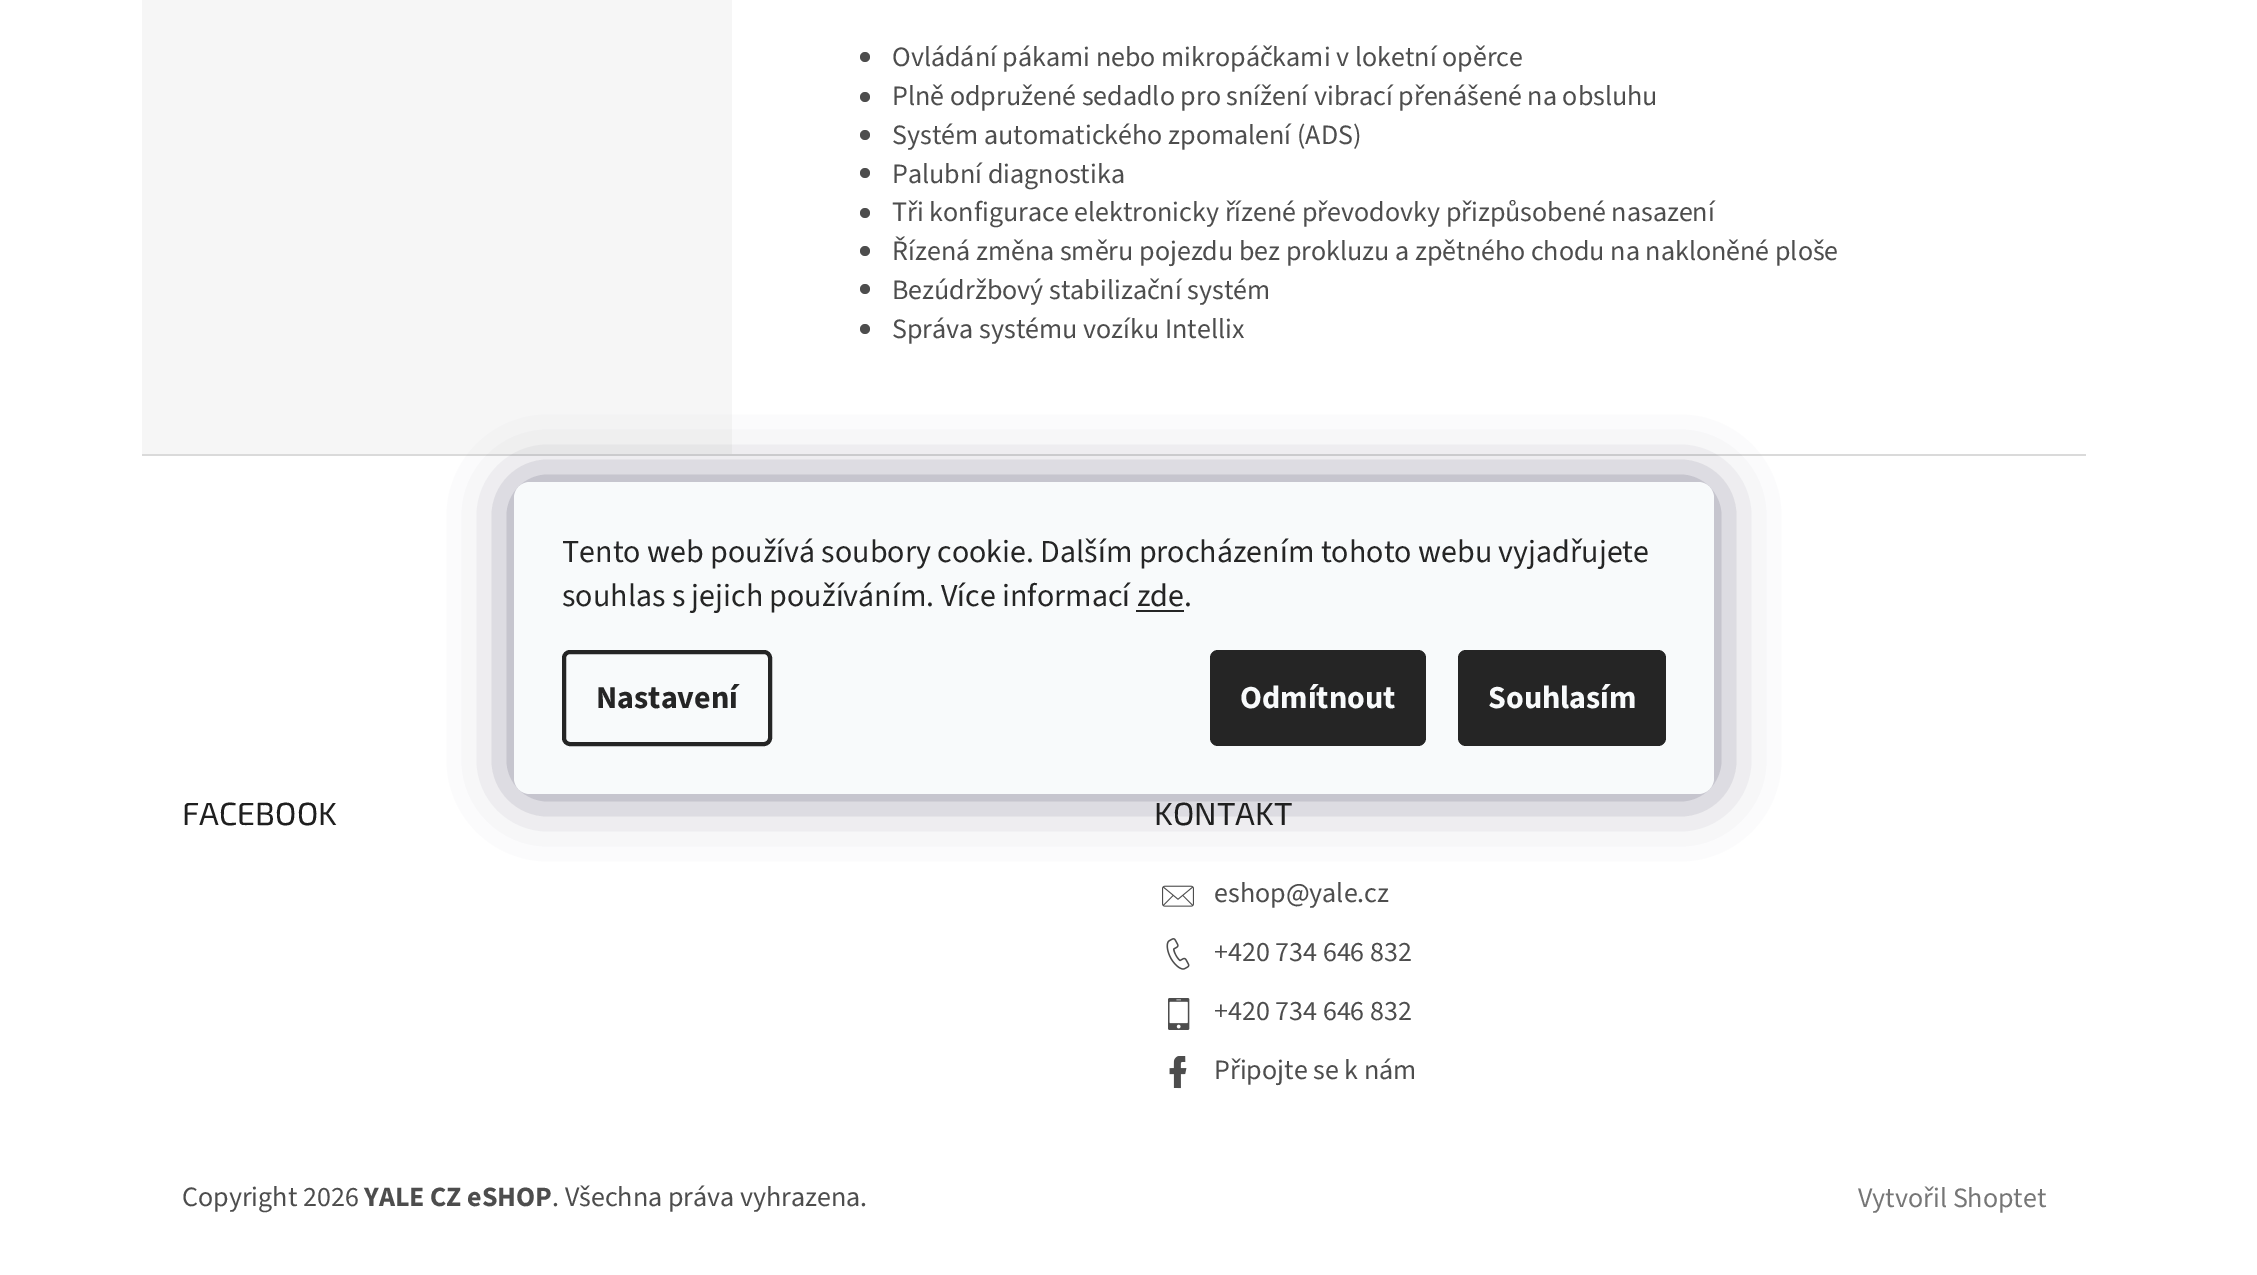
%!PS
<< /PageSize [2257 1275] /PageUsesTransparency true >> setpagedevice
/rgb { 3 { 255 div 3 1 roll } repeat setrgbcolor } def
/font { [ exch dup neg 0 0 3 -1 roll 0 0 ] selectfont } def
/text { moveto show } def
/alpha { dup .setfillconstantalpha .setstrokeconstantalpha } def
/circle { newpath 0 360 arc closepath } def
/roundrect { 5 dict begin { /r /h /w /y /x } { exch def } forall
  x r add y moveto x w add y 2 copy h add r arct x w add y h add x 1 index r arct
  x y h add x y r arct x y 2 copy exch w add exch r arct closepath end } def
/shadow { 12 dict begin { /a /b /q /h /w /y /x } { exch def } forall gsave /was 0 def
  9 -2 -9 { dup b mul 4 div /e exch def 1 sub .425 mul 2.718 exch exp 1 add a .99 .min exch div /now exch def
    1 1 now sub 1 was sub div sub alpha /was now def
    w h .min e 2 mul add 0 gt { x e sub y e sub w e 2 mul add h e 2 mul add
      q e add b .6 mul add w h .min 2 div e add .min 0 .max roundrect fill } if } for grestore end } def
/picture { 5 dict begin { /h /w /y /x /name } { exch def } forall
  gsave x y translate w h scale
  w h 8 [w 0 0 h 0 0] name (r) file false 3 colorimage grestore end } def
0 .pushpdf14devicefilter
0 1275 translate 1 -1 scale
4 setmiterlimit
255 255 255 rgb
0 0 2257 1275 rectfill
246 246 246 rgb
142 0 590 454 rectfill
77 77 77 rgb
865 57 5 circle fill
865 97 5 circle fill
865 135 5 circle fill
865 173 5 circle fill
865 213 5 circle fill
865 251 5 circle fill
865 289 5 circle fill
865 329 5 circle fill
218 218 218 rgb
142 454 1944 2 rectfill
(img_01.rgb) 1162 885 32 22 picture
(img_02.rgb) 1166 938 24 32 picture
(img_03.rgb) 1168 998 22 32 picture
(img_04.rgb) 1169 1056 18 33 picture
27 25 57 rgb
514 482 1200 312 16 30 0.5 shadow
248 250 251 rgb
514 482 1200 312 16 roundrect fill
37 37 37 rgb
1136 610 48 2 rectfill
4 setlinewidth
564 652 206 92 6 roundrect stroke
1210 650 216 96 8 roundrect fill
1458 650 208 96 8 roundrect fill
/SourceSans3-Regular 28 font
77 77 77 rgb
(Ovládání pákami nebo mikropáčkami v loketní opěrce) 892 66 text
(Plně odpružené sedadlo pro snížení vibrací přenášené na obsluhu) 892 105 text
(Systém automatického zpomalení \(ADS\)) 892 144 text
(Palubní diagnostika) 892 183 text
(Tři konfigurace elektronicky řízené převodovky přizpůsobené nasazení) 892 221 text
(Řízená změna směru pojezdu bez prokluzu a zpětného chodu na nakloněné ploše) 892 260 text
(Bezúdržbový stabilizační systém) 892 299 text
(Správa systému vozíku Intellix) 892 338 text
/Exo2-Regular 32 font
31 31 31 rgb
(FACEBOOK) 182 825 text
(KONTAKT) 1154 825 text
/SourceSans3-Regular 28 font
77 77 77 rgb
(eshop@yale.cz) 1214 902 text
(+420 734 646 832) 1214 961 text
(+420 734 646 832) 1214 1020 text
(Připojte se k nám) 1214 1079 text
(Copyright 2026) 182 1206 text
/SourceSans3-Bold 28 font
(YALE CZ eSHOP) 364 1206 text
/SourceSans3-Regular 28 font
(. Všechna práva vyhrazena.) 552 1206 text
118 118 118 rgb
(Vytvořil Shoptet) 1858 1207 text
/SourceSans3-Regular 32 font
37 37 37 rgb
(Tento web používá soubory cookie. Dalším procházením tohoto webu vyjadřujete) 562 562 text
(souhlas s jejich používáním. Více informací zde.) 562 606 text
/SourceSans3-Bold 32 font
(Nastavení) 596 708 text
248 250 251 rgb
(Odmítnout) 1240 708 text
(Souhlasím) 1488 708 text
.poppdf14devicefilter showpage
